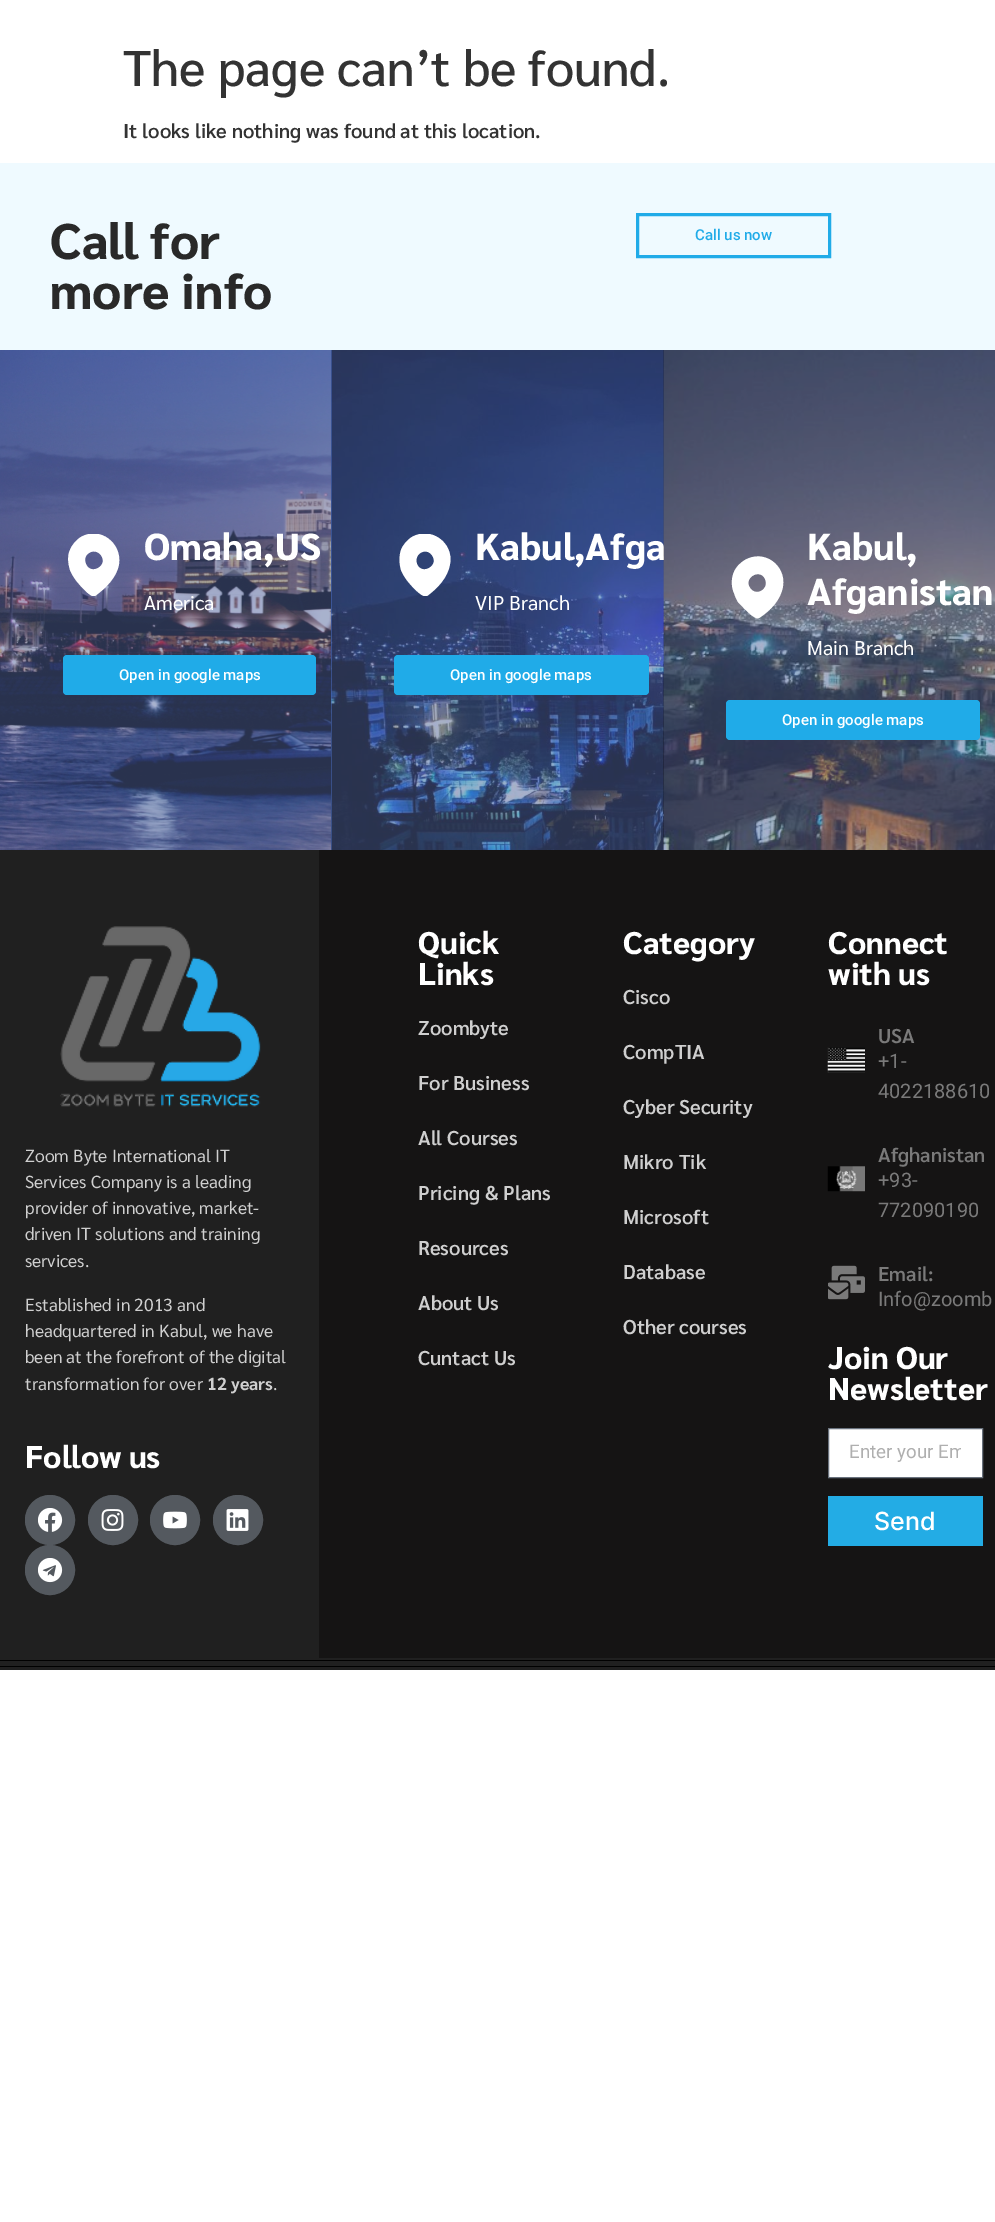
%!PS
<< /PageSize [995 2222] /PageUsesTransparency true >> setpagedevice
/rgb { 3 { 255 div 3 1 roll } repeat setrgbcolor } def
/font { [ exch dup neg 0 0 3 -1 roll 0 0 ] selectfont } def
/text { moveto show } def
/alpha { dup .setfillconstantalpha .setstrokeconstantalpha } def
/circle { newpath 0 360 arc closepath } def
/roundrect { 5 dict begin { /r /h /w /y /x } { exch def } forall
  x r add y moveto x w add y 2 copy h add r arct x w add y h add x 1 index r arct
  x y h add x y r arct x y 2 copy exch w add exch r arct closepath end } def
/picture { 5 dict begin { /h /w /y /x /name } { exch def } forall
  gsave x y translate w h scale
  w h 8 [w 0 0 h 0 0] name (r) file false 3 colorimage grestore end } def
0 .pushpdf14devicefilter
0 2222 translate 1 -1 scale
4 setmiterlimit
255 255 255 rgb
0 0 995 2222 rectfill
239 250 255 rgb
0 163 995 187 rectfill
32 171 232 rgb
3 setlinewidth
637.5 214.5 192 42 rectstroke
(img_01.rgb) 0 350 331 500 picture
gsave
63 534 62 62 rectclip
255 255 255 rgb
81 537 moveto 19 -11 41 6 38 27 rcurveto -2 13 -13 24 -24 32 rcurveto -4 3 -18 -14 -20 -17 rcurveto -2 -3 -4 -6 -5 -9 rcurveto -2 -7 -3 -14 0 -20 rcurveto 2 -5 6 -10 11 -13 rcurveto closepath 86 564 moveto 4 11 21 3 16 -7 rcurveto -5 -11 -21 -4 -16 7 rcurveto closepath eofill
grestore
63 655 253 40 4 roundrect fill
74 130 255 rgb
331 350 1 500 rectfill
(img_02.rgb) 331 350 333 500 picture
0.5 alpha
82 101 155 rgb
331 350 333 500 rectfill
gsave
394 534 62 62 rectclip
1 alpha
255 255 255 rgb
412 537 moveto 19 -11 42 6 38 27 rcurveto -2 13 -12 24 -23 32 rcurveto -5 3 -19 -14 -21 -17 rcurveto -2 -3 -4 -6 -5 -9 rcurveto -2 -7 -2 -14 0 -20 rcurveto 2 -5 6 -10 11 -13 rcurveto closepath 417 564 moveto 4 11 21 3 16 -7 rcurveto -5 -11 -20 -4 -16 7 rcurveto closepath eofill
grestore
1 alpha
32 171 232 rgb
394 655 255 40 4 roundrect fill
21 20 20 rgb
319 850 676 808 rectfill
32 32 32 rgb
0 850 319 808 rectfill
(img_04.rgb) 60 926 201 181 picture
84 89 95 rgb
50 1520 24.5 circle gsave fill grestore
1 setlinewidth
stroke
(img_05.rgb) 38 1508 25 24 picture
113 1520 24.5 circle gsave fill grestore
stroke
(img_06.rgb) 101 1509 23 22 picture
175 1520 24.5 circle gsave fill grestore
stroke
(img_07.rgb) 163 1511 24 18 picture
238 1520 24.5 circle gsave fill grestore
stroke
(img_08.rgb) 226 1509 23 22 picture
50 1570 24.5 circle gsave fill grestore
stroke
(img_09.rgb) 38 1558 25 25 picture
(img_10.rgb) 827 1047 38 26 picture
(img_11.rgb) 827 1166 38 26 picture
(img_12.rgb) 828 1265 37 35 picture
255 255 255 rgb
828.5 1428.5 moveto 154 0 rlineto 0 49 rlineto -154 0 rlineto closepath gsave fill grestore
105 114 125 rgb
stroke
35 172 229 rgb
828 1496 155 50 rectfill
32 32 32 rgb
0 1658 995 12 rectfill
0 0 0 rgb
0 1660 995 1 rectfill
0 1666 995 1 rectfill
/Sarabun-Medium 50 font
51 51 51 rgb
(The page can’t be found.) 123 86 text
/Sarabun-SemiBold 20 font
(It looks like nothing was found at this location.) 123 138 text
/Sarabun-ExtraBold 50 font
41 41 41 rgb
(Call for) 50 259 text
(more info) 50 309 text
/Roboto-Medium 15 font
32 171 232 rgb
(Call us now) 695 240 text
/Sarabun-ExtraBold 37.5 font
255 255 255 rgb
(Omaha,US) 144 560 text
/Sarabun-Regular 20 font
(America) 144 610 text
/Roboto-Medium 15 font
(Open in google maps) 119 680 text
/Sarabun-ExtraBold 37.5 font
(Kabul,Afga) 475 560 text
/Sarabun-Regular 20 font
(VIP Branch) 475 610 text
/Roboto-Medium 15 font
(Open in google maps) 450 680 text
(img_03.rgb) 663 350 332 500 picture
745 560 moveto 19 -11 41 5 38 26 rcurveto -2 14 -13 25 -24 32 rcurveto -4 3 -18 -13 -21 -16 rcurveto -2 -3 -3 -6 -4 -9 rcurveto -3 -7 -3 -14 0 -21 rcurveto 2 -5 6 -9 11 -12 rcurveto closepath 749 586 moveto 5 12 21 4 16 -7 rcurveto -4 -10 -20 -3 -16 7 rcurveto closepath eofill
/Sarabun-ExtraBold 37.5 font
(Kabul,) 807 560 text
(Afganistan) 807 605 text
/Sarabun-Regular 20 font
(Main Branch) 807 655 text
32 171 232 rgb
726 700 254 40 4 roundrect fill
/Roboto-Medium 15 font
255 255 255 rgb
(Open in google maps) 782 725 text
/Sarabun-Regular 17.5 font
207 207 207 rgb
(Zoom Byte International IT) 25 1162 text
(Services Company is a leading) 25 1188 text
(provider of innovative, market-) 25 1214 text
(driven IT solutions and training) 25 1240 text
(services.) 25 1267 text
(Established in 2013 and) 25 1311 text
(headquartered in Kabul, we have) 25 1337 text
(been at the forefront of the digital) 25 1363 text
(transformation for over) 25 1390 text
/Sarabun-Bold 17.5 font
(12 years) 207 1390 text
/Sarabun-Regular 17.5 font
(.) 273 1390 text
/Sarabun-ExtraBold 31.25 font
255 255 255 rgb
(Follow us) 25 1468 text
(Quick) 418 954 text
(Links) 418 985 text
/Sarabun-SemiBold 20 font
207 207 207 rgb
(Zoombyte) 418 1035 text
(For Business) 418 1090 text
(All Courses) 418 1145 text
(Pricing & Plans) 418 1200 text
(Resources) 418 1255 text
(About Us) 418 1310 text
(Cuntact Us) 418 1365 text
/Sarabun-ExtraBold 31.25 font
255 255 255 rgb
(Category) 623 954 text
/Sarabun-SemiBold 20 font
207 207 207 rgb
(Cisco) 623 1004 text
(CompTIA) 623 1059 text
(Cyber Security) 623 1114 text
(Mikro Tik) 623 1169 text
(Microsoft) 623 1224 text
(Database) 623 1279 text
(Other courses) 623 1334 text
/Sarabun-ExtraBold 31.25 font
255 255 255 rgb
(Connect) 828 954 text
(with us) 828 985 text
/Sarabun-SemiBold 20 font
122 122 122 rgb
(USA) 878 1043 text
/Roboto-Regular 20 font
(+1-) 878 1068 text
(4022188610) 878 1098 text
/Sarabun-SemiBold 20 font
(Afghanistan) 878 1162 text
/Roboto-Regular 20 font
(+93-) 878 1187 text
(772090190) 878 1217 text
/Sarabun-SemiBold 20 font
(Email:) 878 1281 text
/Roboto-Regular 20 font
(Info@zoomb) 878 1306 text
/Sarabun-ExtraBold 31.25 font
255 255 255 rgb
(Join Our) 828 1369 text
(Newsletter) 828 1400 text
gsave
849 1440 112 23 rectclip
/Roboto-Regular 18.75 font
175 175 175 rgb
(Enter your Em) 849 1458 text
grestore
/Inter-Medium 25 font
(Send) 874 1530 text
.poppdf14devicefilter showpage
